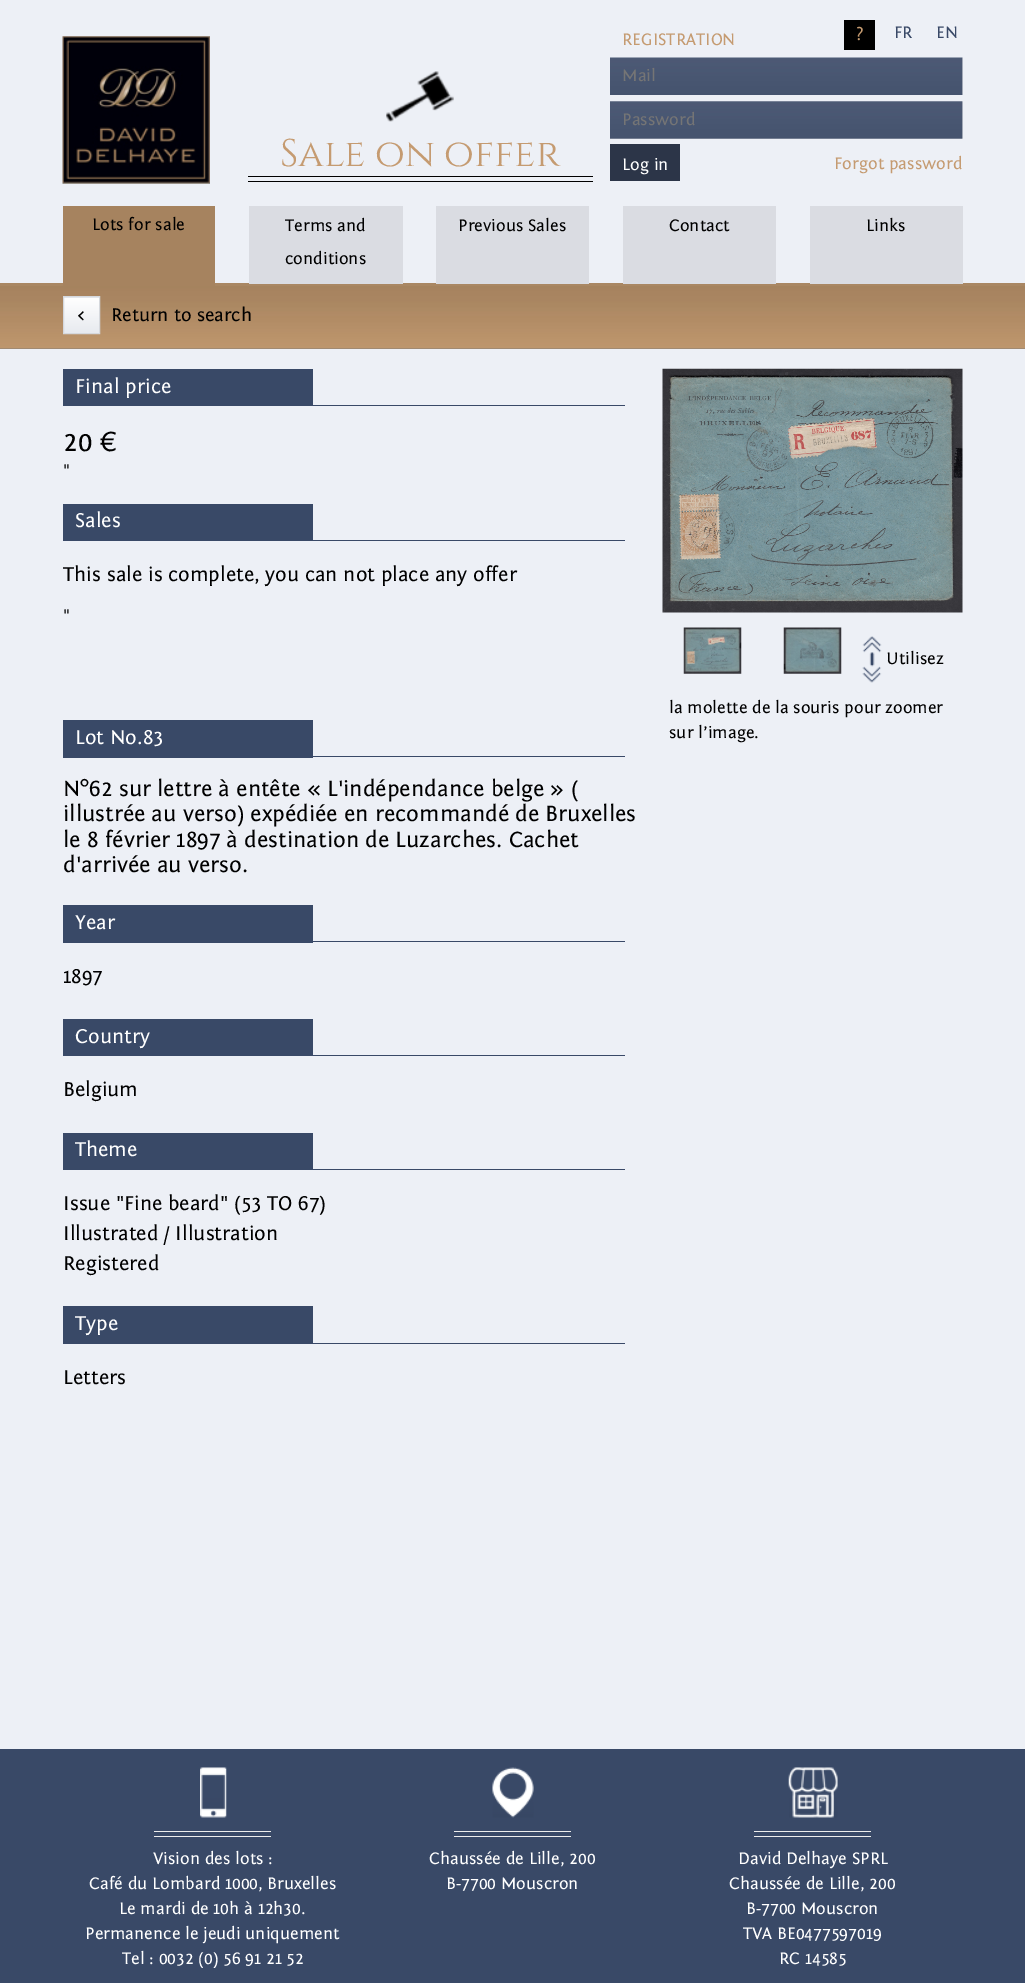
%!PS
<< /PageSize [1025 1983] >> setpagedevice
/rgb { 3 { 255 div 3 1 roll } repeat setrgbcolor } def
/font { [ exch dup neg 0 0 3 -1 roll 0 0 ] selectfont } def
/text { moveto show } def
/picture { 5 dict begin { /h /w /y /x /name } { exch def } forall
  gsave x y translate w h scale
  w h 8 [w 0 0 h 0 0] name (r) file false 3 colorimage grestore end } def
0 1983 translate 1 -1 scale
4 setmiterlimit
237 240 246 rgb
0 0 1025 1983 rectfill
169 135 99 rgb
0 283 1025 3 rectfill
(img_01.rgb) 62 36 148 148 picture
0 0 0 rgb
248 181 345 1 rectfill
(img_02.rgb) 386 71 68 51 picture
248 176 345 1 rectfill
844 20 31 30 rectfill
255 255 255 rgb
962 58 1 37 rectfill
(img_03.rgb) 610 57 353 38 picture
610 101 353 38 rectfill
(img_04.rgb) 610 101 353 38 picture
44 53 72 rgb
610 144 70 37 rectfill
166 131 95 rgb
63 206 152 80 rectfill
218 220 226 rgb
249 206 154 78 rectfill
436 206 153 78 rectfill
623 206 153 78 rectfill
810 206 153 78 rectfill
(img_05.rgb) 0 286 1025 62 picture
161 138 114 rgb
0 348 1025 1 rectfill
gsave 63 297 moveto 37 0 rlineto 0 1 rlineto -37 0 rlineto closepath clip newpath
<< /ShadingType 2 /ColorSpace /DeviceRGB /Coords [81 263 81 298] /Extend [true true] /Function << /FunctionType 2 /Domain [0 1] /C0 [1 1 1] /C1 [0.906 0.918 0.937] /N 1 >> >> shfill grestore
gsave 64 298 moveto 35 0 rlineto 0 35 rlineto -35 0 rlineto closepath clip newpath
<< /ShadingType 2 /ColorSpace /DeviceRGB /Coords [81 298 81 333] /Extend [true true] /Function << /FunctionType 2 /Domain [0 1] /C0 [1 1 1] /C1 [0.906 0.918 0.937] /N 1 >> >> shfill grestore
213 216 221 rgb
63.5 296.5 36 37 rectstroke
57 73 103 rgb
63 369 250 37 rectfill
313 405 312 1 rectfill
63 504 250 37 rectfill
313 540 312 1 rectfill
63 720 250 38 rectfill
313 756 312 1 rectfill
63 905 250 38 rectfill
313 941 312 1 rectfill
63 1019 250 37 rectfill
313 1055 312 1 rectfill
63 1133 250 37 rectfill
313 1169 312 1 rectfill
63 1306 250 38 rectfill
313 1343 312 1 rectfill
(img_06.rgb) 662 368 301 245 picture
(img_07.rgb) 683 627 59 47 picture
(img_08.rgb) 783 627 59 47 picture
(img_09.rgb) 862 636 20 47 picture
0 1749 1025 234 rectfill
(img_10.rgb) 200 1767 27 51 picture
238 238 238 rgb
154 1831 117 1 rectfill
154 1836 117 1 rectfill
(img_11.rgb) 492 1767 42 51 picture
454 1831 117 1 rectfill
454 1836 117 1 rectfill
(img_12.rgb) 788 1767 50 51 picture
754 1831 117 1 rectfill
754 1836 117 1 rectfill
/Cinzel-Regular 38.5 font
197 155 113 rgb
(Sale on offer) 280 166 text
/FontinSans-Regular 17.5 font
(?) 856 40 text
57 73 103 rgb
(FR) 894 38 text
(EN) 936 38 text
197 155 113 rgb
(REGISTRATION) 622 45 text
117 117 117 rgb
(Mail) 622 81 text
(Password) 622 125 text
255 255 255 rgb
(Log in) 622 170 text
197 155 113 rgb
(Forgot password) 834 169 text
0 0 0 rgb
(Lots for sale) 92 230 text
(Terms and) 285 231 text
(conditions) 285 264 text
(Previous Sales) 458 231 text
(Contact) 669 231 text
(Links) 866 231 text
/FontinSans-Regular 21 font
(<) 77 321 text
/FontinSans-Regular 19.25 font
(Return to search) 111 321 text
/FontinSans-Regular 21 font
255 255 255 rgb
(Final price) 75 393 text
/FontinSans-Regular 29 font
0 0 0 rgb
(20 €) 63 451 text
/FontinSans-Regular 17.5 font
(") 63 476 text
/FontinSans-Regular 21 font
255 255 255 rgb
(Sales) 75 527 text
0 0 0 rgb
(This sale is complete, you can not place any offer) 63 581 text
/FontinSans-Regular 17.5 font
(") 63 621 text
/FontinSans-Regular 21 font
255 255 255 rgb
(Lot No.83) 75 744 text
/FontinSans-Regular 23.1 font
0 0 0 rgb
(N°62 sur lettre à entête « L'indépendance belge » \() 63 796 text
(illustrée au verso\) expédiée en recommandé de Bruxelles) 63 821 text
(le 8 février 1897 à destination de Luzarches. Cachet) 63 847 text
(d'arrivée au verso.) 63 872 text
/FontinSans-Regular 21 font
255 255 255 rgb
(Year) 75 929 text
0 0 0 rgb
(1897) 63 983 text
255 255 255 rgb
(Country) 75 1043 text
0 0 0 rgb
(Belgium) 63 1096 text
255 255 255 rgb
(Theme) 75 1156 text
0 0 0 rgb
(Issue "Fine beard" \(53 TO 67\)) 63 1210 text
(Illustrated / Illustration) 63 1240 text
(Registered) 63 1270 text
255 255 255 rgb
(Type) 75 1330 text
0 0 0 rgb
(Letters) 63 1384 text
/FontinSans-Regular 17.5 font
(Utilisez) 886 664 text
(la molette de la souris pour zoomer) 669 713 text
(sur l’image.) 669 738 text
255 255 255 rgb
(Vision des lots :) 153 1864 text
(Café du Lombard 1000, Bruxelles) 89 1889 text
(Le mardi de 10h à 12h30.) 119 1914 text
(Permanence le jeudi uniquement) 85 1939 text
(Tel : 0032 \(0\) 56 91 21 52) 122 1964 text
(Chaussée de Lille, 200) 429 1864 text
(B-7700 Mouscron) 446 1889 text
(David Delhaye SPRL) 738 1864 text
(Chaussée de Lille, 200) 729 1889 text
(B-7700 Mouscron) 746 1914 text
(TVA BE0477597019) 743 1939 text
(RC 14585) 779 1964 text
showpage
